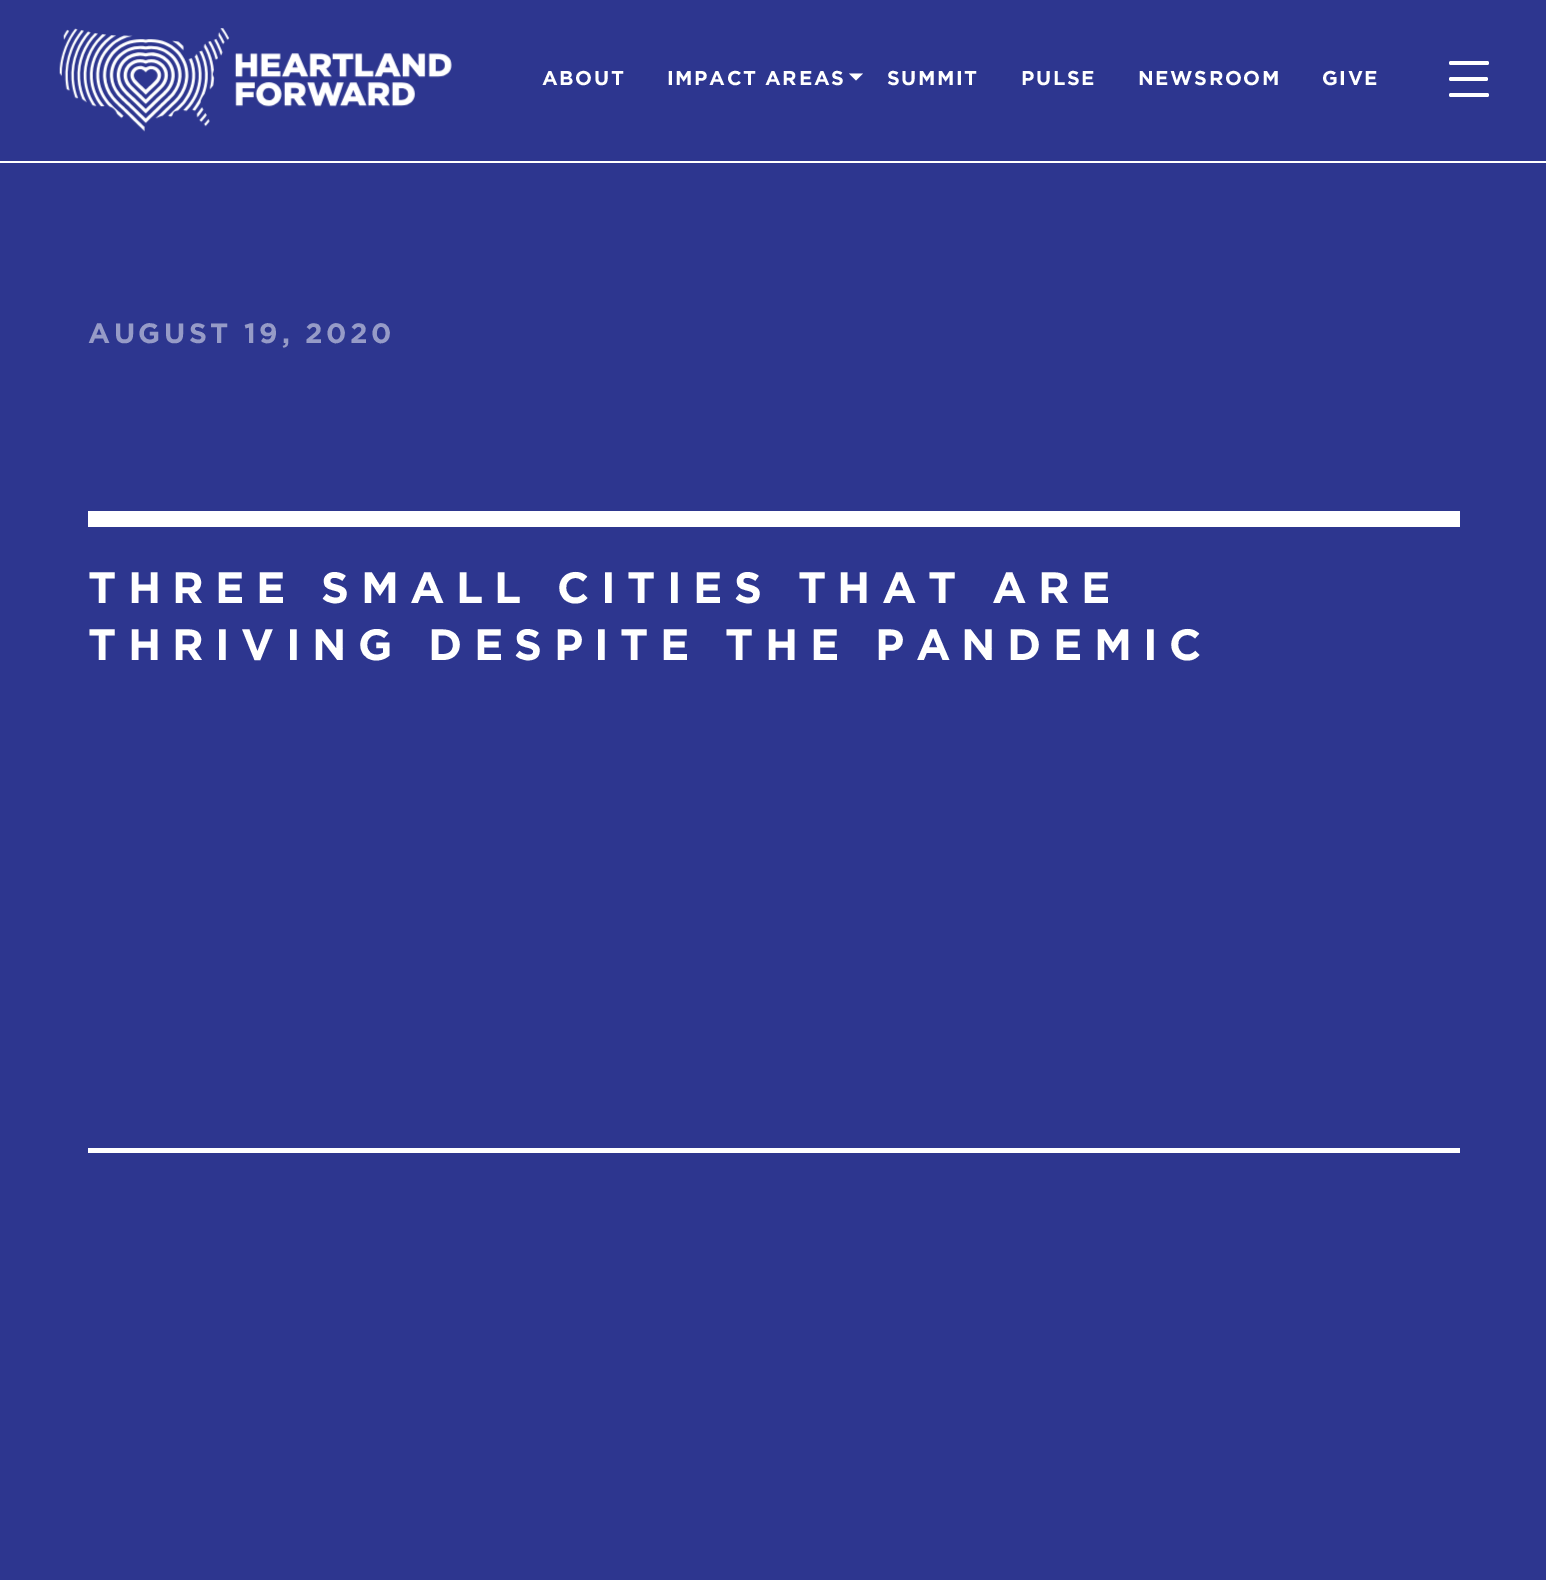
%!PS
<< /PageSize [1546 1580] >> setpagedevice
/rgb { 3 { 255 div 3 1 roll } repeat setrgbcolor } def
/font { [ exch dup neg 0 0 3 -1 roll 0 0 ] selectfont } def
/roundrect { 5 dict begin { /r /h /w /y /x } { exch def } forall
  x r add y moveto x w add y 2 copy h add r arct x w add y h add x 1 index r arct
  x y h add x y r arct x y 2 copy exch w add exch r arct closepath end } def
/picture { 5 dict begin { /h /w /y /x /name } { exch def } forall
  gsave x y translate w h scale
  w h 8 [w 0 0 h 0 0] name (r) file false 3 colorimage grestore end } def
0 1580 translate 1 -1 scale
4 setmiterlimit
45 54 143 rgb
0 0 1546 1580 rectfill
255 255 255 rgb
0 161 1546 2 rectfill
(img_01.rgb) 59 28 393 104 picture
849 73.5 moveto 14 0 rlineto -7 7 rlineto closepath fill
1449 77 39 4 2 roundrect fill
1449 61 40 4 2 roundrect fill
1449 93 40 4 2 roundrect fill
88 511 1372 16 rectfill
88 1148 1372 5 rectfill
/Gotham-Bold 20 font
542 85 moveto 1.6 0 (ABOUT) ashow
667 85 moveto 1.6 0 (IMPACT AREAS) ashow
887 85 moveto 1.6 0 (SUMMIT) ashow
1021 85 moveto 1.6 0 (PULSE) ashow
1138 85 moveto 1.6 0 (NEWSROOM) ashow
1322 85 moveto 1.6 0 (GIVE) ashow
/Gotham-Bold 28 font
150 155 199 rgb
88 343 moveto 3.6 0 (AUGUST 19, 2020) ashow
/Gotham-Bold 43.75 font
255 255 255 rgb
88 603 moveto 11.4 0 (THREE SMALL CITIES THAT ARE) ashow
88 660 moveto 11.4 0 (THRIVING DESPITE THE PANDEMIC) ashow
showpage
